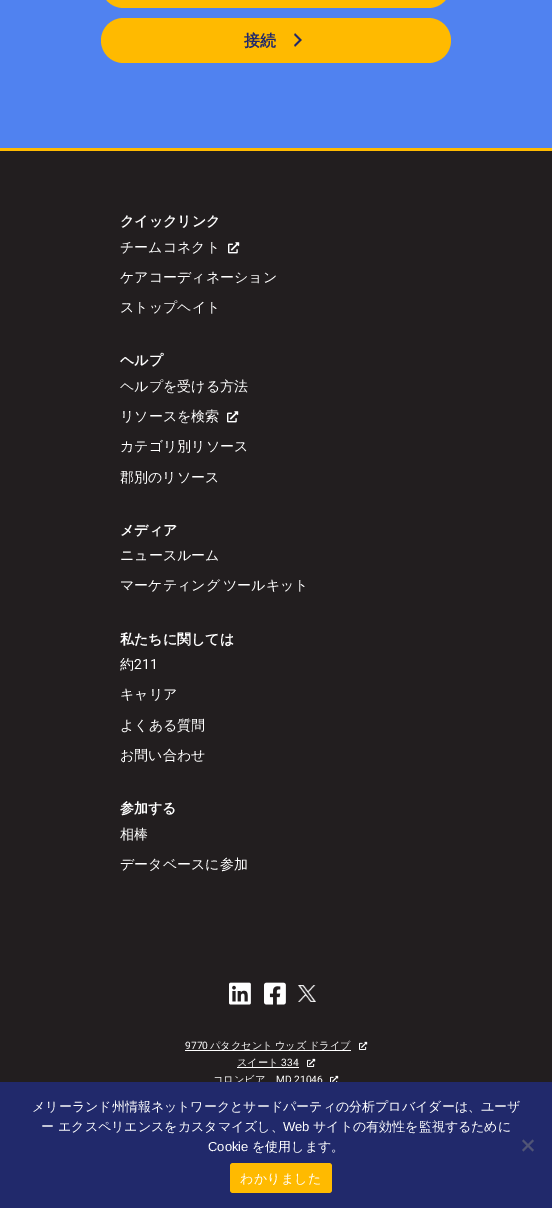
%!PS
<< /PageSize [552 1208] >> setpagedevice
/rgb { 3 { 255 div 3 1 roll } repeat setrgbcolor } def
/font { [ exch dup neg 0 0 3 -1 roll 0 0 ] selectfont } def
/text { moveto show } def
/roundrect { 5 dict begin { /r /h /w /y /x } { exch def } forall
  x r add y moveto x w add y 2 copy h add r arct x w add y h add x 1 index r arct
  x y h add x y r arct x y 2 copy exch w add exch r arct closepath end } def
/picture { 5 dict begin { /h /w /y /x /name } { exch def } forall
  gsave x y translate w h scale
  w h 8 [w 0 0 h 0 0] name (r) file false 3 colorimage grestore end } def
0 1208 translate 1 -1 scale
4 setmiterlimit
80 130 240 rgb
0 0 552 1208 rectfill
255 186 0 rgb
0 148 552 3 rectfill
101 -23 350 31 22.5 roundrect fill
101 18 350 45 22.5 roundrect fill
(img_01.rgb) 294 33 8 14 picture
34 30 31 rgb
0 151 552 931 rectfill
(img_02.rgb) 228 242 12 12 picture
(img_02.rgb) 227 411 12 12 picture
(img_03.rgb) 229 982 22 23 picture
(img_04.rgb) 264 982 22 23 picture
(img_05.rgb) 298 985 18 17 picture
255 255 255 rgb
185 1050 166 1 rectfill
(img_06.rgb) 359 1041 9 9 picture
237 1067 62 1 rectfill
(img_06.rgb) 307 1058 9 9 picture
(img_07.rgb) 330 1075 9 7 picture
/WenQuanYiZenHei-Bold 16 font
33 41 107 rgb
(接続) 244 46 text
/WenQuanYiZenHei-Bold 14 font
255 255 255 rgb
(クイックリンク) 120 226 text
/WenQuanYiZenHei-Medium 14 font
(チームコネクト) 120 252 text
(ケアコーディネーション) 120 282 text
(ストップヘイト) 120 312 text
/WenQuanYiZenHei-Bold 14 font
(ヘルプ) 120 365 text
/WenQuanYiZenHei-Medium 14 font
(ヘルプを受ける方法) 120 391 text
(リソースを検索) 120 421 text
(カテゴリ別リソース) 120 451 text
(郡別のリソース) 120 482 text
/WenQuanYiZenHei-Bold 14 font
(メディア) 120 535 text
/WenQuanYiZenHei-Medium 14 font
(ニュースルーム) 120 560 text
120 590 moveto -1 0 32 (マーケティング ツールキット) widthshow
/WenQuanYiZenHei-Bold 14 font
(私たちに関しては) 120 644 text
/WenQuanYiZenHei-Medium 14 font
(約) 120 669 text
/Roboto-Regular 14 font
(211) 134 669 text
/WenQuanYiZenHei-Medium 14 font
(キャリア) 120 699 text
(よくある質問) 120 730 text
(お問い合わせ) 120 760 text
/WenQuanYiZenHei-Bold 14 font
(参加する) 120 813 text
/WenQuanYiZenHei-Medium 14 font
(相棒) 120 839 text
(データベースに参加) 120 869 text
/Roboto-Regular 10.25 font
(9770) 185 1049 text
/WenQuanYiZenHei-Medium 10.25 font
210 1049 moveto -1 0 32 (パタクセント ウッズ ドライブ) widthshow
(スイート) 237 1066 text
/Roboto-Regular 10.25 font
(334) 281 1066 text
/WenQuanYiZenHei-Medium 10.25 font
(コロンビア) 213 1083 text
/Roboto-Regular 10.25 font
(MD 21046) 276 1083 text
33 41 107 rgb
0 1082 552 126 rectfill
/WenQuanYiZenHei-Medium 13 font
255 255 255 rgb
(メリーランド州情報ネットワークとサードパーティの分析プロバイダーは、ユーザ) 32 1111 text
(ー エクスペリエンスをカスタマイズし、) 41 1131 text
/LiberationSans-Regular 13 font
(Web) 283 1131 text
/WenQuanYiZenHei-Medium 13 font
(サイトの有効性を監視するために) 313 1131 text
/LiberationSans-Regular 13 font
(Cookie) 208 1151 text
/WenQuanYiZenHei-Medium 13 font
(を使用します。) 252 1151 text
81 85 118 rgb
532.5 1139.5 moveto 1.5 1.5 rlineto -10.5 10.5 rlineto -1.5 -1.5 rlineto closepath fill
522 1141 moveto 1.5 -1.5 rlineto 10.5 10.5 rlineto -1.5 1.5 rlineto closepath fill
255 186 0 rgb
230 1163 102 30 3 roundrect fill
255 255 255 rgb
240 1183 moveto 0.25 0 (わかりました) ashow
showpage
